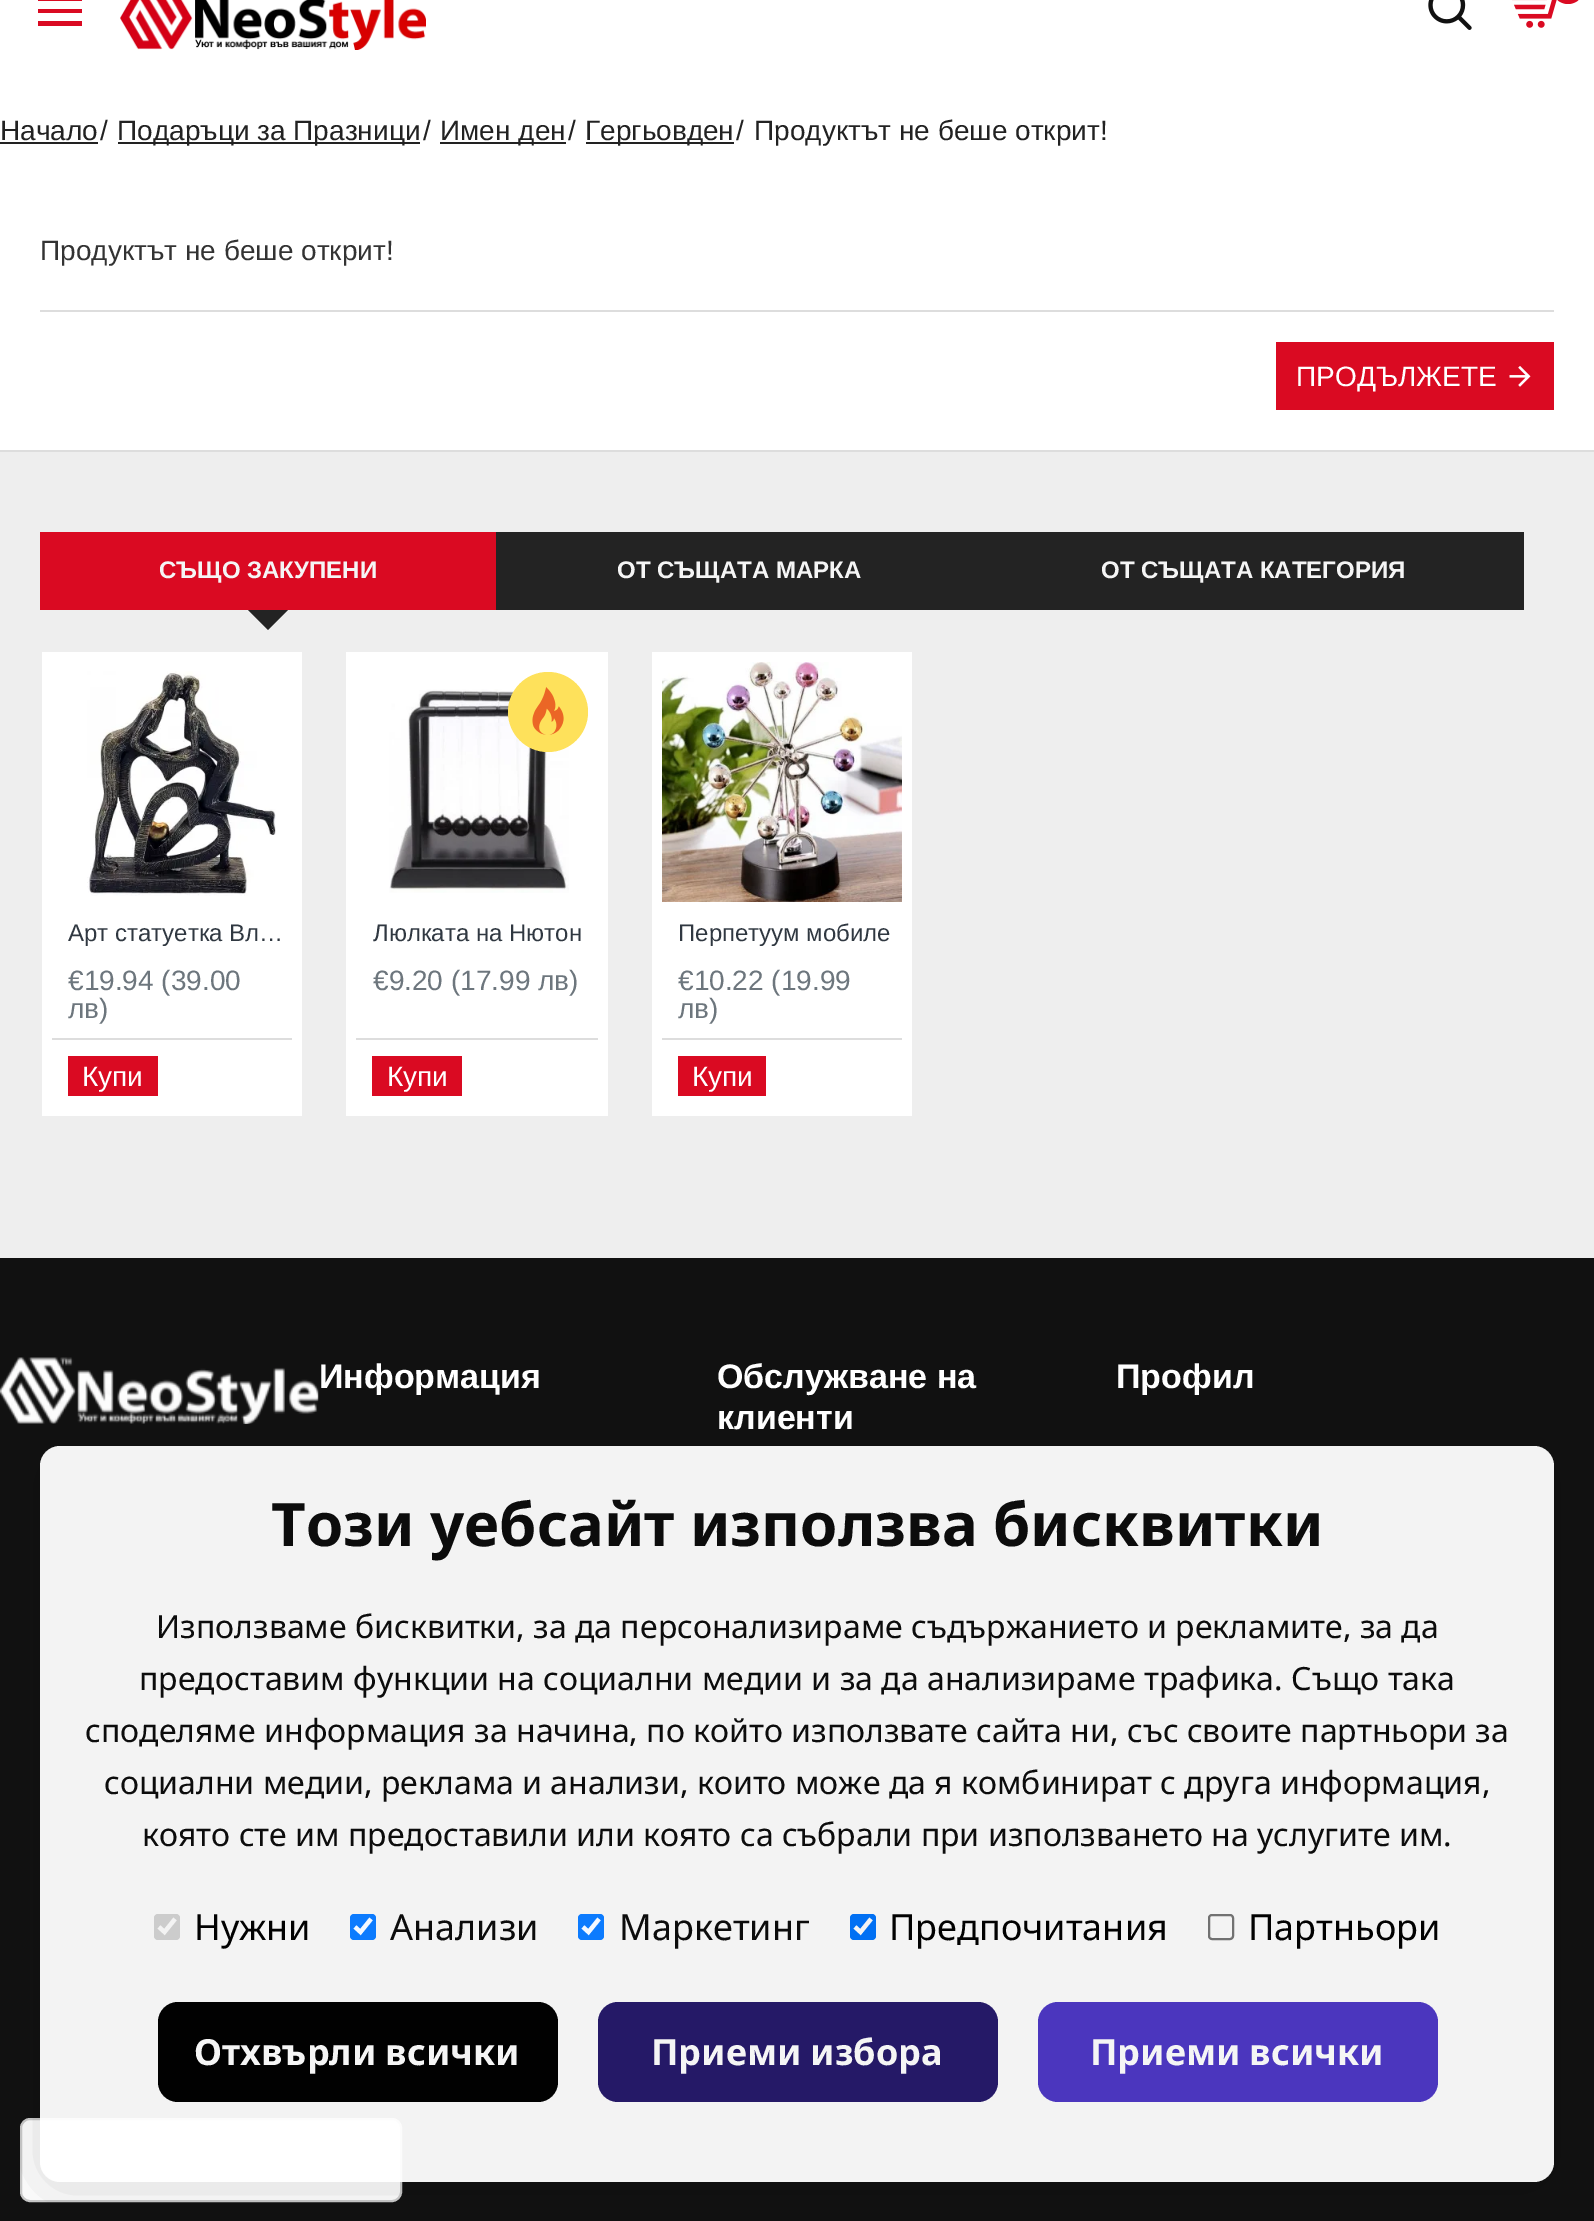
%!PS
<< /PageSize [1594 2221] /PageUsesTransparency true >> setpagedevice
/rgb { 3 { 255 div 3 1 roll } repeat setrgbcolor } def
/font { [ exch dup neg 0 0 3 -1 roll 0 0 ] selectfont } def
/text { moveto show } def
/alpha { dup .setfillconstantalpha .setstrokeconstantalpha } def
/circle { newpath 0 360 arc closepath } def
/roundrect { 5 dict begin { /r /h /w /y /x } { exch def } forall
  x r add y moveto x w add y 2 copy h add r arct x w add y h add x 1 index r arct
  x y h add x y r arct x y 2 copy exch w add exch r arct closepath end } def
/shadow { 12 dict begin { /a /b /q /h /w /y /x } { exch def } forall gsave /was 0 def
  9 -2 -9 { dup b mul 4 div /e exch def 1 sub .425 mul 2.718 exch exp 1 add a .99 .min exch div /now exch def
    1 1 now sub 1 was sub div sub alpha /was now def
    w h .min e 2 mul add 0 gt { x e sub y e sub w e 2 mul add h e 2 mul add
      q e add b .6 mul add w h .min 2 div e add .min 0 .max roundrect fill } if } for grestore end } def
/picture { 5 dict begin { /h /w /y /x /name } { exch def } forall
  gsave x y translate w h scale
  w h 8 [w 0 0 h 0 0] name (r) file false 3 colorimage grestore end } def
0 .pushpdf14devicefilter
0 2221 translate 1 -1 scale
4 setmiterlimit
255 255 255 rgb
0 0 1594 2221 rectfill
218 10 34 rgb
38 -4 moveto 44 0 rlineto 0 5 rlineto -44 0 rlineto closepath 38 13 moveto 0 -4 rlineto 44 0 rlineto 0 4 rlineto closepath 38 26 moveto 0 -5 rlineto 44 0 rlineto 0 5 rlineto closepath fill
(img_01.rgb) 1428 0 44 30 picture
(img_02.rgb) 1512 0 45 28 picture
1552 -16 32 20 16 roundrect fill
(img_03.rgb) 120 0 306 50 picture
34 34 34 rgb
0 142 98 2 rectfill
118 142 302 2 rectfill
440 142 126 2 rectfill
586 142 148 2 rectfill
221 221 221 rgb
40 310 1514 2 rectfill
218 10 34 rgb
1276 342 278 68 rectfill
(img_04.rgb) 1509 366 22 21 picture
238 238 238 rgb
0 452 1594 806 rectfill
221 221 221 rgb
0 450 1594 2 rectfill
218 10 34 rgb
40 532 456 78 rectfill
35 35 35 rgb
248 610 moveto 40 0 rlineto -20 20 rlineto closepath fill
496 532 2 78 rectfill
498 532 1026 78 rectfill
255 255 255 rgb
42 652 260 464 rectfill
(img_05.rgb) 87 671 189 225 picture
221 221 221 rgb
52 1038 240 2 rectfill
218 10 34 rgb
68 1056 90 40 rectfill
255 255 255 rgb
346 652 262 464 rectfill
(img_07.rgb) 389 689 180 204 picture
254 225 91 rgb
548 712 40 circle fill
(img_06.rgb) 532 687 32 48 picture
221 221 221 rgb
356 1038 242 2 rectfill
218 10 34 rgb
372 1056 90 40 rectfill
255 255 255 rgb
652 652 260 464 rectfill
(img_08.rgb) 662 662 240 240 picture
221 221 221 rgb
662 1038 240 2 rectfill
218 10 34 rgb
678 1056 88 40 rectfill
17 17 17 rgb
0 1258 1594 963 rectfill
(img_09.rgb) 0 1357 319 67 picture
255 255 255 rgb
21 2119 380 82 9 roundrect gsave fill grestore
204 204 204 rgb
2 setlinewidth
stroke
gsave
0 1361 moveto 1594 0 rlineto 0 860 rlineto -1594 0 rlineto closepath 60 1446 moveto 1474 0 rlineto 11 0 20 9 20 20 rcurveto 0 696 rlineto 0 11 -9 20 -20 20 rcurveto -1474 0 rlineto -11 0 -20 -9 -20 -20 rcurveto 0 -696 rlineto 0 -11 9 -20 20 -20 rcurveto closepath eoclip newpath
0 0 0 rgb
40 1452 1514 736 20 30 0.15 shadow
grestore
0.95 alpha
255 255 255 rgb
40 1446 1514 736 20 roundrect fill
1 alpha
204 204 204 rgb
154 1914 26 26 4 roundrect fill
243 243 243 rgb
4.2 setlinewidth
159 1927 moveto 5.5 5 rlineto 10.5 -13 rlineto stroke
0.95 alpha
0 117 255 rgb
350 1914 26 26 4 roundrect fill
1 alpha
243 248 255 rgb
355 1927 moveto 5.5 5 rlineto 10.5 -13 rlineto stroke
0.95 alpha
0 117 255 rgb
578 1914 26 26 4 roundrect fill
1 alpha
243 248 255 rgb
583 1927 moveto 5.5 5 rlineto 10.5 -13 rlineto stroke
1 112 243 rgb
850 1914 26 26 4 roundrect fill
243 243 243 rgb
855 1927 moveto 5.5 5 rlineto 10.5 -13 rlineto stroke
113 113 113 rgb
2 setlinewidth
1209 1915 24 24 3 roundrect stroke
1 1 1 rgb
158 2002 400 100 20 roundrect fill
0.95 alpha
26 13 96 rgb
598 2002 400 100 20 roundrect fill
1 alpha
75 54 190 rgb
1038 2002 400 100 20 roundrect fill
/LiberationSans-Regular 28 font
34 34 34 rgb
(Начало) 0 140 text
(/) 100 140 text
(Подаръци за Празници) 117 140 text
(/) 423 140 text
(Имен ден) 440 140 text
(/) 568 140 text
(Гергьовден) 585 140 text
(/) 736 140 text
(Продуктът не беше открит!) 754 140 text
51 51 51 rgb
(Продуктът не беше открит!) 40 260 text
255 255 255 rgb
(ПРОДЪЛЖЕТЕ) 1296 386 text
/LiberationSans-Bold 24 font
245 245 245 rgb
(СЪЩО ЗАКУПЕНИ) 159 578 text
(ОТ СЪЩАТА МАРКА) 617 578 text
(ОТ СЪЩАТА КАТЕГОРИЯ) 1101 578 text
/LiberationSans-Regular 24 font
48 56 65 rgb
(Арт статуетка Вл…) 68 941 text
/LiberationSans-Regular 28 font
109 118 125 rgb
(€19.94 \(39.00) 68 990 text
(лв\)) 68 1018 text
255 255 255 rgb
(Купи) 82 1086 text
/LiberationSans-Regular 24 font
48 56 65 rgb
(Люлката на Нютон) 373 941 text
/LiberationSans-Regular 28 font
109 118 125 rgb
(€9.20 \(17.99 лв\)) 373 990 text
255 255 255 rgb
(Купи) 387 1086 text
/LiberationSans-Regular 24 font
48 56 65 rgb
(Перпетуум мобиле) 678 941 text
/LiberationSans-Regular 28 font
109 118 125 rgb
(€10.22 \(19.99) 678 990 text
(лв\)) 678 1018 text
255 255 255 rgb
(Купи) 692 1086 text
/LiberationSans-Bold 34 font
(Информация) 319 1388 text
(Обслужване на) 717 1388 text
(клиенти) 717 1429 text
(Профил) 1116 1388 text
/NotoSans-Bold 60 font
12 12 12 rgb
(Този уебсайт използва бисквитки) 271 1546 text
/NotoSans-Regular 32 font
(Използваме бисквитки, за да персонализираме съдържанието и рекламите, за да) 156 1638 text
(предоставим функции на социални медии и за да анализираме трафика. Също така) 139 1690 text
(споделяме информация за начина, по който използвате сайта ни, със своите партньори за) 85 1742 text
(социални медии, реклама и анализи, които може да я комбинират с друга информация,) 104 1794 text
(която сте им предоставили или която са събрали при използването на услугите им.) 142 1846 text
/NotoSans-Regular 36 font
1 1 1 rgb
(Нужни) 194 1940 text
12 12 12 rgb
(Анализи) 390 1940 text
(Маркетинг) 619 1940 text
1 1 1 rgb
(Предпочитания) 889 1940 text
(Партньори) 1248 1940 text
/NotoSans-Bold 36 font
245 245 245 rgb
(Отхвърли всички) 194 2065 text
(Приеми избора) 651 2065 text
(Приеми всички) 1090 2065 text
.poppdf14devicefilter showpage
